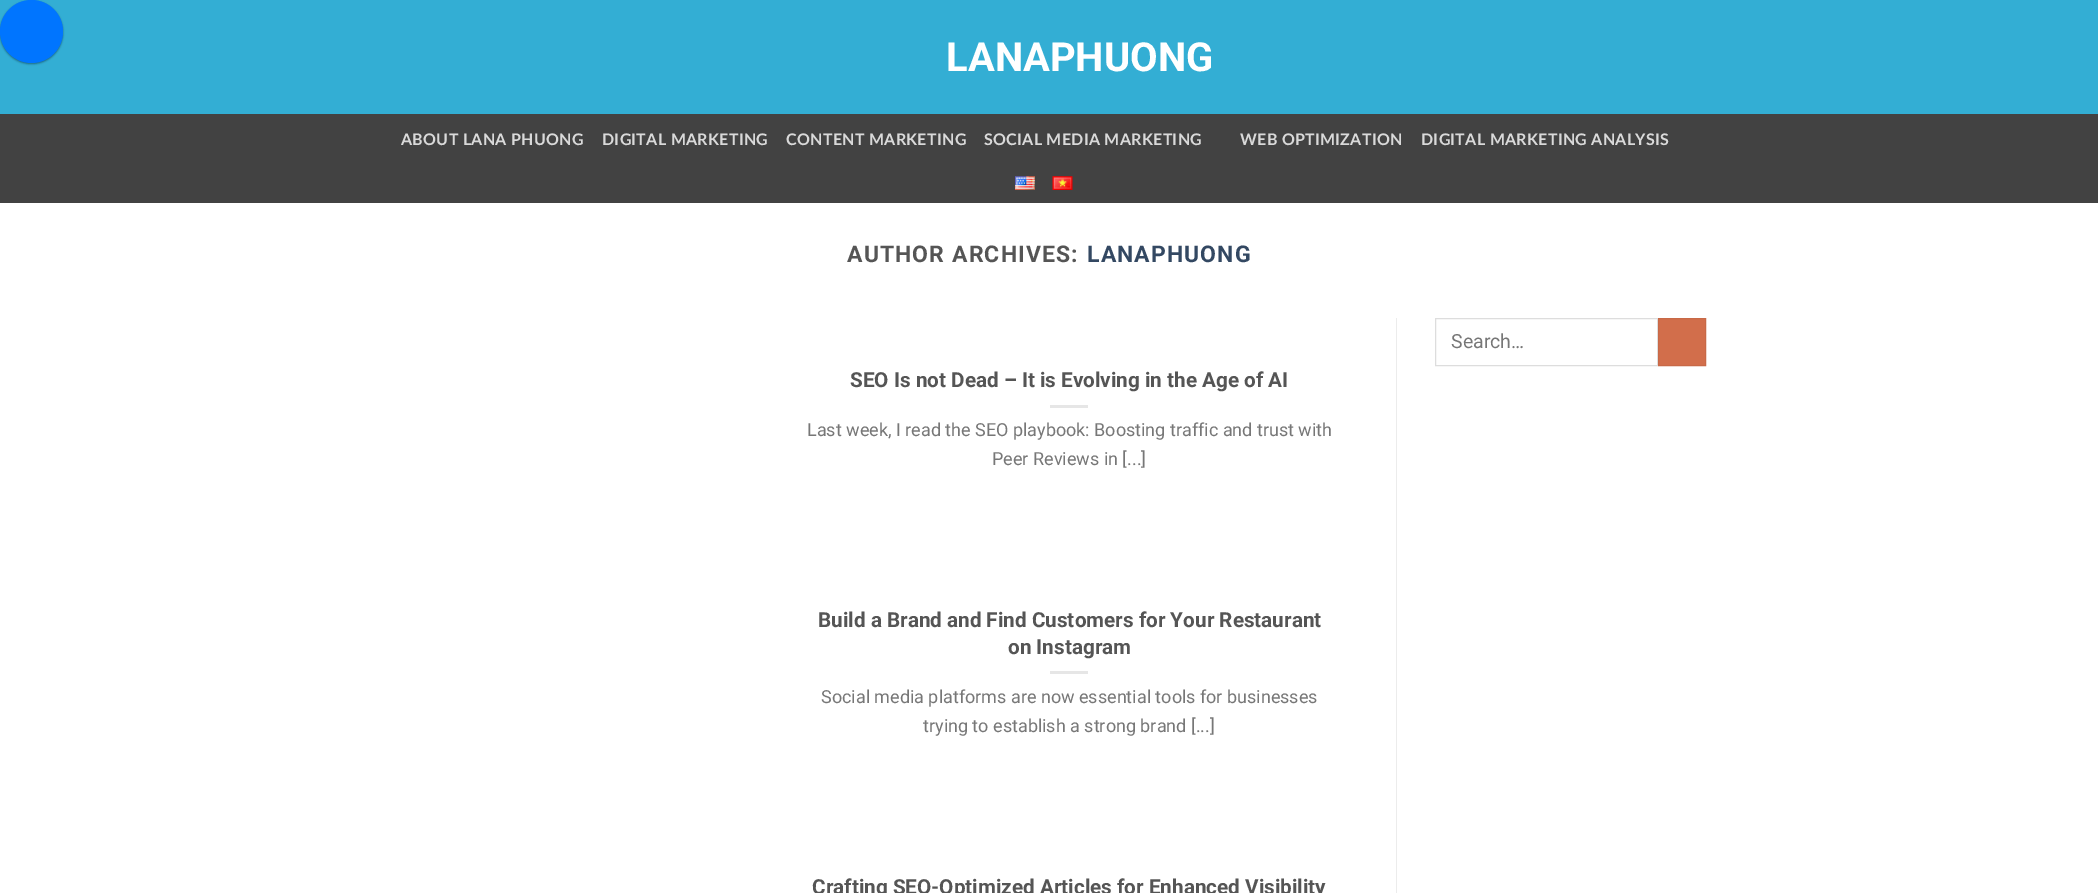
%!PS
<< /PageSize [2098 893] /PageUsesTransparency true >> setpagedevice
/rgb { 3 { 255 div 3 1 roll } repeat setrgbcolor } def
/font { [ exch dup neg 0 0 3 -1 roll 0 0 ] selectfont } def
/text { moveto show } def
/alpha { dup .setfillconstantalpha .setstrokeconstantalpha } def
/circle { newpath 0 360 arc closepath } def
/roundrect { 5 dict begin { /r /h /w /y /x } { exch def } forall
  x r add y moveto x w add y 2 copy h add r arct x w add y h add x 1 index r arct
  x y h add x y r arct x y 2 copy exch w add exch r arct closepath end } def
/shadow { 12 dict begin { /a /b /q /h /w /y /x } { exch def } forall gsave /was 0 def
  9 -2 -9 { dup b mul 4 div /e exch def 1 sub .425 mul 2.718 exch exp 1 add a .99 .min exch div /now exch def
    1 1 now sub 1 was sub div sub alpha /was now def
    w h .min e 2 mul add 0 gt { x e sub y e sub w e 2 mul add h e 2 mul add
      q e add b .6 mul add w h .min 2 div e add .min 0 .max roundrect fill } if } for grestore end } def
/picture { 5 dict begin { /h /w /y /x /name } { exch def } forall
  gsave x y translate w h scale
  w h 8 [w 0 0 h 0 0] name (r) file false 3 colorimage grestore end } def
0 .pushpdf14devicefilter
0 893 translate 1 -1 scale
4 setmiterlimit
255 255 255 rgb
0 0 2098 893 rectfill
51 174 212 rgb
0 0 2098 114 rectfill
0 0 0 rgb
0 1 63 63 31.5 1 0.4 shadow
0 117 255 rgb
31.5 31.5 31.5 circle fill
66 66 66 rgb
0 114 2098 89 rectfill
(img_01.rgb) 1015 176 20 14 picture
(img_02.rgb) 1052 176 21 14 picture
236 236 236 rgb
1396 318 1 575 rectfill
221 221 221 rgb
1435.5 318.5 222 47 rectstroke
210 110 75 rgb
1658.5 318.5 moveto 47 0 rlineto 0 47 rlineto -47 0 rlineto closepath gsave fill grestore
200 105 71 rgb
stroke
230 230 230 rgb
1050 405 38 3 rectfill
1050 671 38 3 rectfill
/Roboto-Bold 40 font
255 255 255 rgb
(LANAPHUONG) 946 71 text
/Lato-Bold 16 font
217 217 217 rgb
401 145 moveto 0.3 0 (ABOUT LANA PHUONG) ashow
602 145 moveto 0.3 0 (DIGITAL MARKETING) ashow
786 145 moveto 0.3 0 (CONTENT MARKETING) ashow
984 145 moveto 0.3 0 (SOCIAL MEDIA MARKETING) ashow
1240 145 moveto 0.3 0 (WEB OPTIMIZATION) ashow
1421 145 moveto 0.3 0 (DIGITAL MARKETING ANALYSIS) ashow
/Roboto-Bold 23 font
85 85 85 rgb
847 262 moveto 1.1 0 (AUTHOR ARCHIVES:) ashow
51 72 98 rgb
1087 262 moveto 1.1 0 (LANAPHUONG) ashow
/Roboto-Regular 19.5 font
119 119 119 rgb
(Search…) 1451 348 text
/Roboto-Bold 20.7 font
85 85 85 rgb
(SEO Is not Dead – It is Evolving in the Age of AI) 850 387 text
/Roboto-Regular 18 font
119 119 119 rgb
(Last week, I read the SEO playbook: Boosting traffic and trust with) 807 436 text
(Peer Reviews in [...]) 992 465 text
/Roboto-Bold 20.7 font
85 85 85 rgb
(Build a Brand and Find Customers for Your Restaurant) 818 627 text
(on Instagram) 1008 654 text
/Roboto-Regular 18 font
119 119 119 rgb
(Social media platforms are now essential tools for businesses) 821 703 text
(trying to establish a strong brand [...]) 923 732 text
/Roboto-Bold 20.7 font
85 85 85 rgb
(Crafting SEO-Optimized Articles for Enhanced Visibility) 812 894 text
.poppdf14devicefilter showpage
